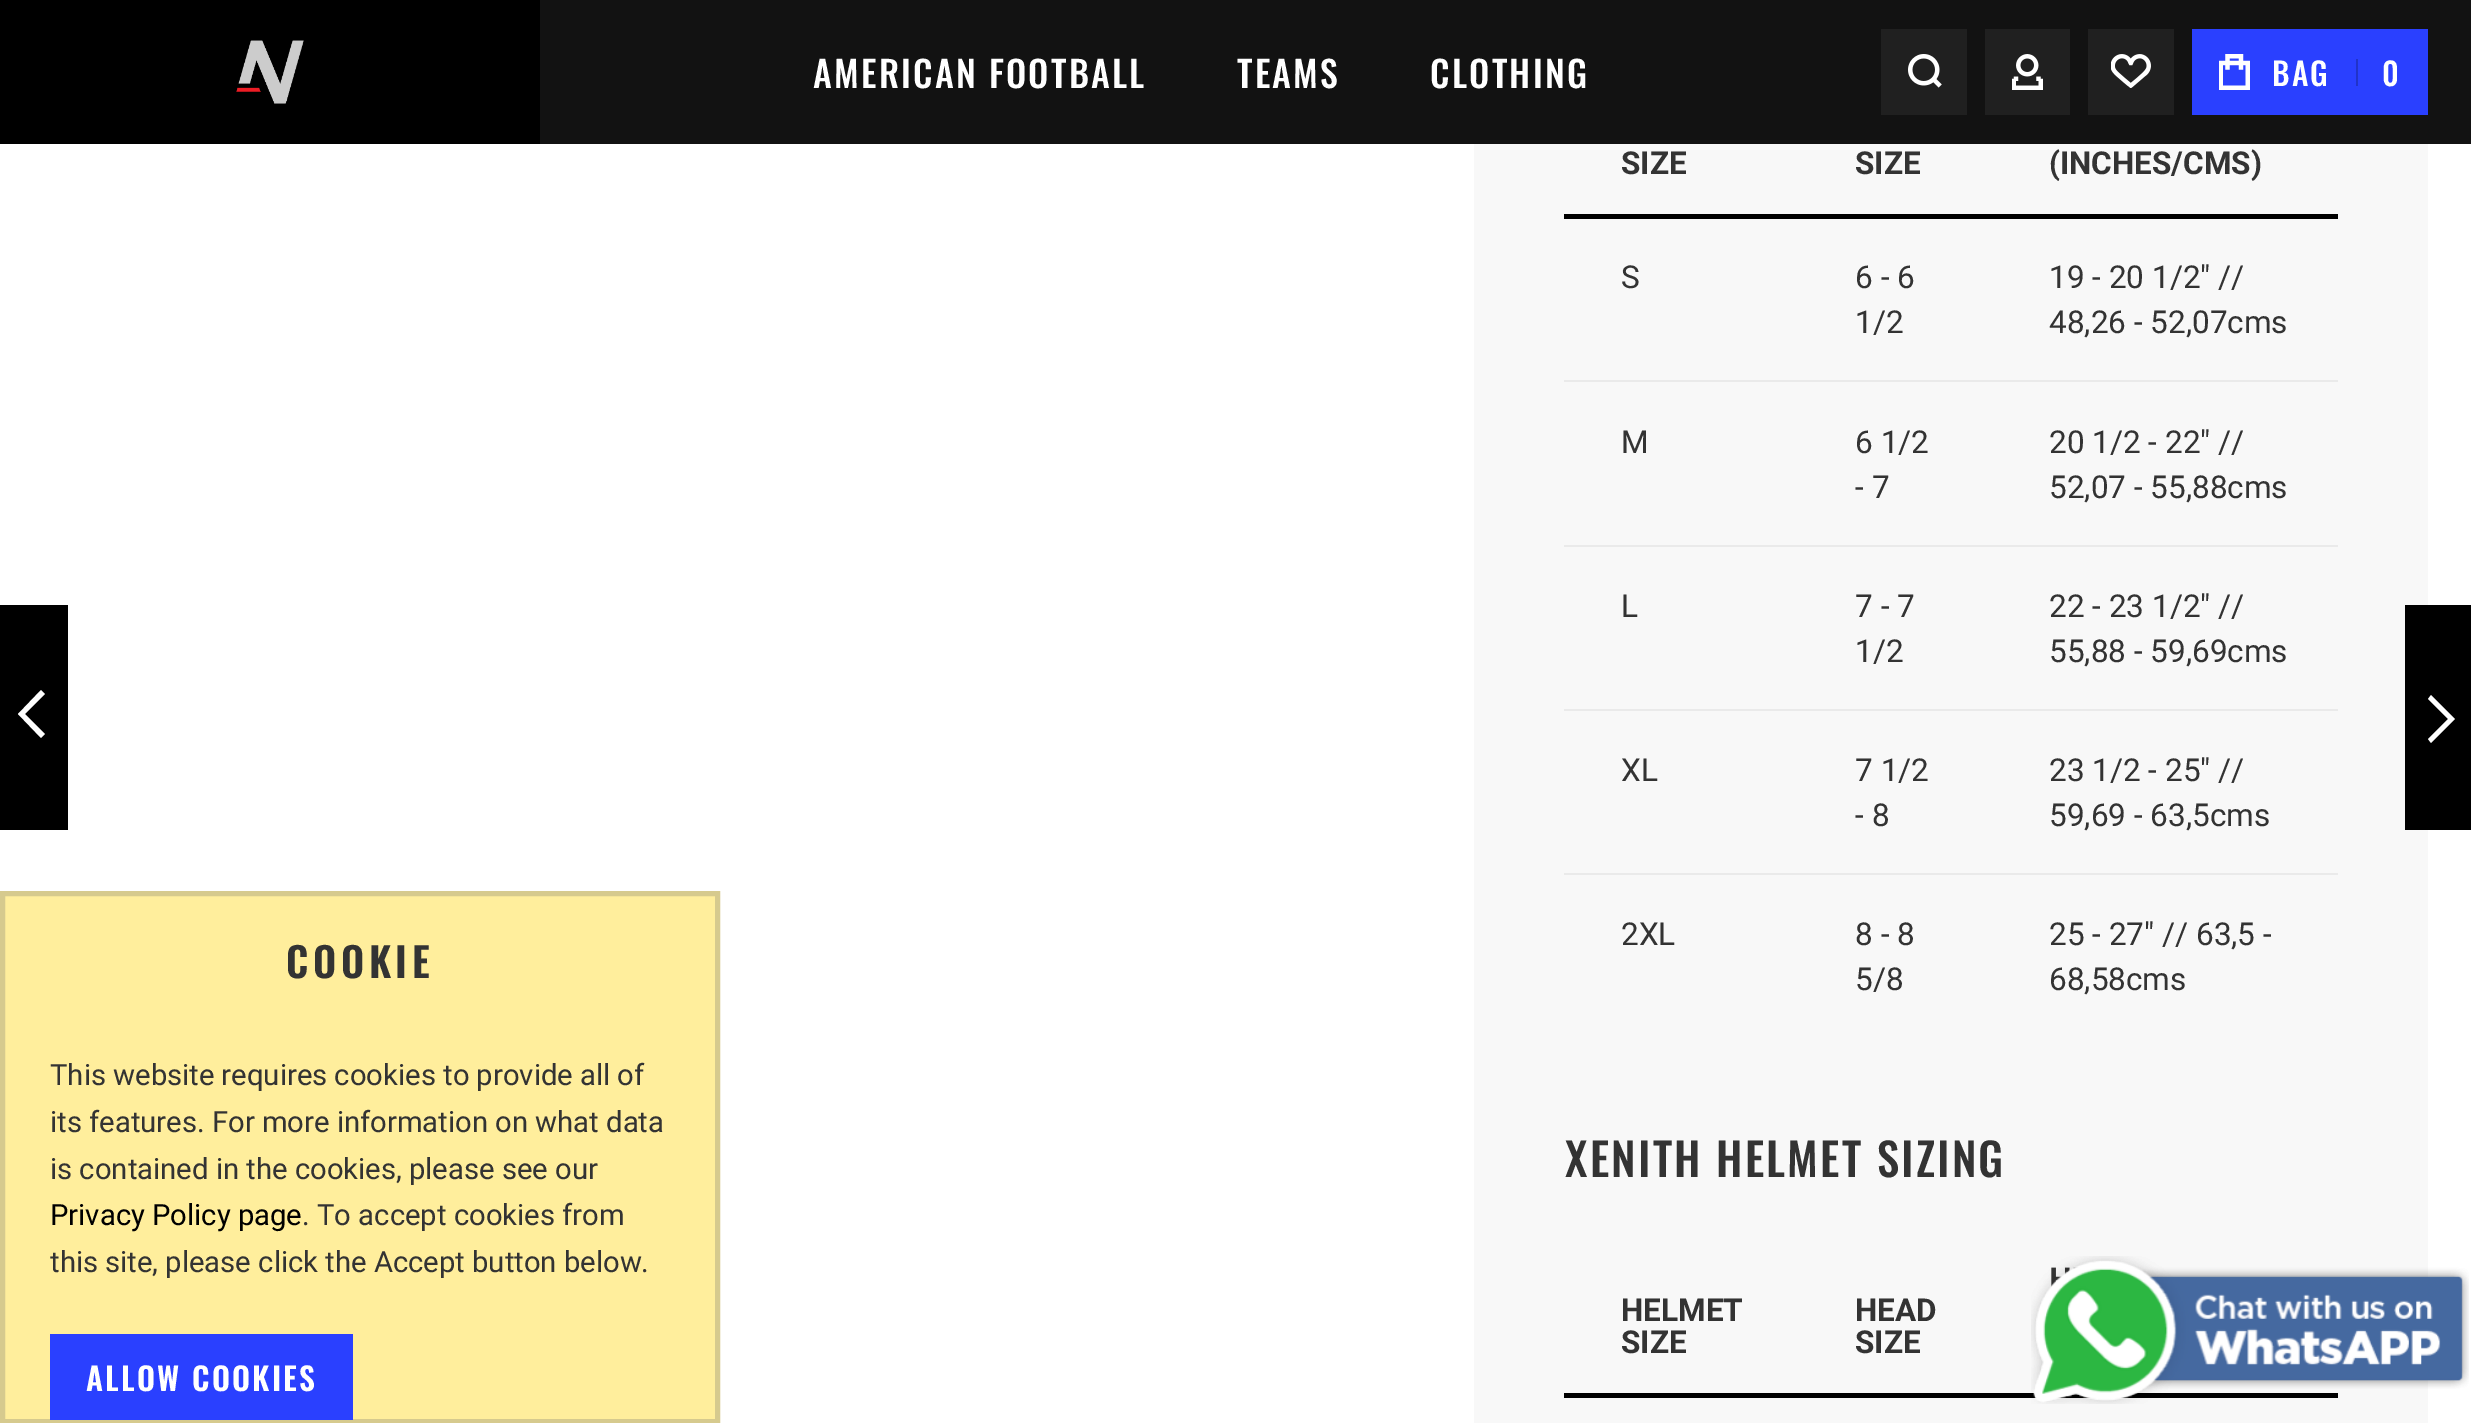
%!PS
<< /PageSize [2471 1423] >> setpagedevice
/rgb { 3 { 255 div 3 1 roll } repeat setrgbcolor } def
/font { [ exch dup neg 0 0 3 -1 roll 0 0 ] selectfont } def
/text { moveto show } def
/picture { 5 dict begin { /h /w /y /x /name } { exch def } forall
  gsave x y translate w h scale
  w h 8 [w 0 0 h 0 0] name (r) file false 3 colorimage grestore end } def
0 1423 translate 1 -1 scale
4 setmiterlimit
255 255 255 rgb
0 0 2471 1423 rectfill
255 238 156 rgb
2.5 893.5 moveto 715 0 rlineto 0 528 rlineto -715 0 rlineto closepath gsave fill grestore
214 202 142 rgb
5 setlinewidth
stroke
42 64 255 rgb
50 1334 303 86 rectfill
18 18 18 rgb
540 0 1931 144 rectfill
0 0 0 rgb
0 0 540 144 rectfill
(img_01.rgb) 236 40 68 64 picture
32 32 32 rgb
1881 29 86 86 rectfill
(img_02.rgb) 1908 54 34 34 picture
1985 29 85 86 rectfill
(img_03.rgb) 2012 54 31 36 picture
2088 29 86 86 rectfill
(img_04.rgb) 2111 54 40 34 picture
42 64 255 rgb
2192 29 236 86 rectfill
(img_05.rgb) 2219 54 31 36 picture
33 51 201 rgb
2356 59 2 27 rectfill
0 0 0 rgb
0 605 68 225 rectfill
255 255 255 rgb
18 714 moveto 23 24 rlineto 4 -4 rlineto -20 -20 rlineto 20 -20 rlineto -4 -4 rlineto closepath fill
248 248 248 rgb
1474 144 954 1279 rectfill
0 0 0 rgb
1564 214 774 5 rectfill
234 234 234 rgb
1564 380 774 2 rectfill
1564 545 774 2 rectfill
1564 709 774 2 rectfill
1564 873 774 2 rectfill
0 0 0 rgb
1564 1393 774 5 rectfill
2405 605 66 225 rectfill
255 255 255 rgb
2455 719 moveto -24 -24 rlineto -3 4 rlineto 20 20 rlineto -20 20 rlineto 3 4 rlineto closepath fill
(img_06.rgb) 2031 1256 438 148 picture
(img_07.rgb) 2031 1256 438 148 picture
/Oswald-SemiBold 40.5 font
51 51 51 rgb
286 978 moveto 4.5 0 (COOKIE) ashow
/Roboto-Regular 29.25 font
(This website requires cookies to provide all of) 50 1085 text
(its features. For more information on what data) 50 1132 text
(is contained in the cookies, please see our) 50 1179 text
0 0 0 rgb
(Privacy Policy page) 50 1225 text
51 51 51 rgb
(. To accept cookies from) 302 1225 text
(this site, please click the Accept button below.) 50 1272 text
/Oswald-SemiBold 31.5 font
255 255 255 rgb
86 1391 moveto 2.25 0 (ALLOW COOKIES) ashow
/Oswald-Medium 36 font
813 88 moveto 2.25 0 (AMERICAN FOOTBALL) ashow
1237 88 moveto 2.25 0 (TEAMS) ashow
1430 88 moveto 2.25 0 (CLOTHING) ashow
/Oswald-Medium 31.5 font
2272 86 moveto 2.25 0 (BAG) ashow
2382 86 moveto 2.25 0 (0) ashow
/Roboto-Bold 31.5 font
51 51 51 rgb
(SIZE) 1621 174 text
(SIZE) 1855 174 text
(\(INCHES/CMS\)) 2049 174 text
/Roboto-Regular 31.5 font
(S) 1621 288 text
(6 - 6) 1855 288 text
(1/2) 1855 333 text
(19 - 20 1/2" //) 2049 288 text
(48,26 - 52,07cms) 2049 333 text
(M) 1621 453 text
(6 1/2) 1855 453 text
(- 7) 1855 498 text
(20 1/2 - 22" //) 2049 453 text
(52,07 - 55,88cms) 2049 498 text
(L) 1621 617 text
(7 - 7) 1855 617 text
(1/2) 1855 662 text
(22 - 23 1/2" //) 2049 617 text
(55,88 - 59,69cms) 2049 662 text
(XL) 1621 781 text
(7 1/2) 1855 781 text
(- 8) 1855 826 text
(23 1/2 - 25" //) 2049 781 text
(59,69 - 63,5cms) 2049 826 text
(2XL) 1621 945 text
(8 - 8) 1855 945 text
(5/8) 1855 990 text
(25 - 27" // 63,5 -) 2049 945 text
(68,58cms) 2049 990 text
/Oswald-Medium 45 font
1565 1177 moveto 2.25 0 (XENITH HELMET SIZING) ashow
/Roboto-Bold 31.5 font
(HELMET) 1621 1321 text
(SIZE) 1621 1353 text
(HEAD) 1855 1321 text
(SIZE) 1855 1353 text
showpage
